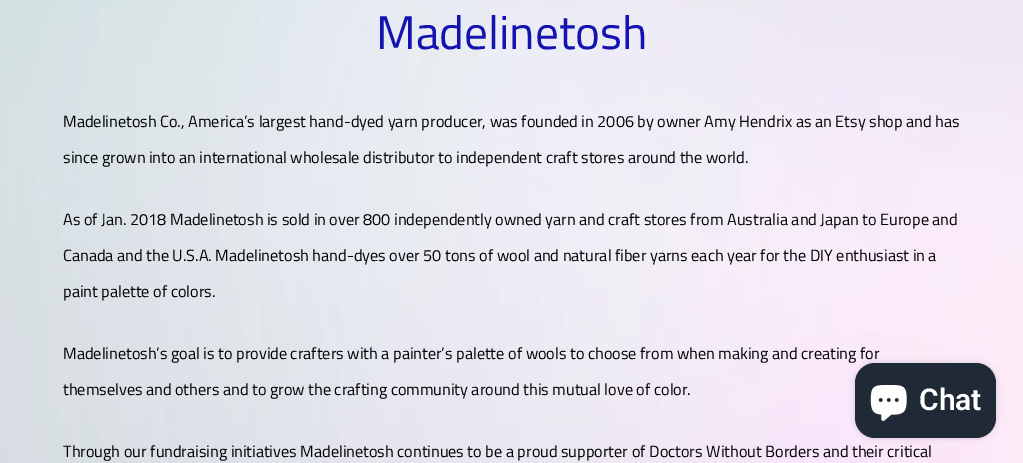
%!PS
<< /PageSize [1023 463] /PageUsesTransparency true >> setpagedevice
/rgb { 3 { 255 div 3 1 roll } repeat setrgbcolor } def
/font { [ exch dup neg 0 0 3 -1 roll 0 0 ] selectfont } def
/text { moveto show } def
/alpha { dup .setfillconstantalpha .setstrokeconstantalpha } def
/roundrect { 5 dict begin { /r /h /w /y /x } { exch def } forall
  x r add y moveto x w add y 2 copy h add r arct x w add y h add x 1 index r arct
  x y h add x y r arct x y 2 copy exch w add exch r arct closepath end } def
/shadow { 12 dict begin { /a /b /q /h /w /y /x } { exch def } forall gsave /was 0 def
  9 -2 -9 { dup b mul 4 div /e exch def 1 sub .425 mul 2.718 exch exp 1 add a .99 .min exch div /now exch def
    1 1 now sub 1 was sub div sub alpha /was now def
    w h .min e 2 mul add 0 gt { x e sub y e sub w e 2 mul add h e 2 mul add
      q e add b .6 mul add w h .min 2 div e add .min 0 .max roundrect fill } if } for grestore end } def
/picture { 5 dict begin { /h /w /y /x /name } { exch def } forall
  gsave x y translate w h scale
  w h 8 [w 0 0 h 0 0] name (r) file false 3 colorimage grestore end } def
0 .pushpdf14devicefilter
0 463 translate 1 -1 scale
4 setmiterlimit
255 255 255 rgb
0 0 1023 463 rectfill
(img_01.rgb) 0 0 1023 463 picture
0 0 0 rgb
855 363 141 75 20 3 0.15 shadow
32 42 54 rgb
855 363 141 75 20 roundrect fill
(img_02.rgb) 870 385 37 36 picture
/TitilliumWeb-Regular 47.25 font
20 18 176 rgb
(Madelinetosh) 376 49 text
/TitilliumWeb-Regular 16.25 font
0 0 0 rgb
(Madelinetosh Co., America’s largest hand-dyed yarn producer, was founded in 2006 by owner Amy Hendrix as an Etsy shop and has) 63 127 text
(since grown into an international wholesale distributor to independent craft stores around the world.) 63 163 text
(As of Jan. 2018 Madelinetosh is sold in over 800 independently owned yarn and craft stores from Australia and Japan to Europe and) 63 225 text
(Canada and the U.S.A. Madelinetosh hand-dyes over 50 tons of wool and natural fiber yarns each year for the DIY enthusiast in a) 63 261 text
(paint palette of colors.) 63 297 text
(Madelinetosh’s goal is to provide crafters with a painter’s palette of wools to choose from when making and creating for) 63 359 text
(themselves and others and to grow the crafting community around this mutual love of color.) 63 395 text
(Through our fundraising initiatives Madelinetosh continues to be a proud supporter of Doctors Without Borders and their critical) 63 457 text
/Roboto-SemiBold 30 font
255 255 255 rgb
(Chat) 919 410 text
.poppdf14devicefilter showpage
